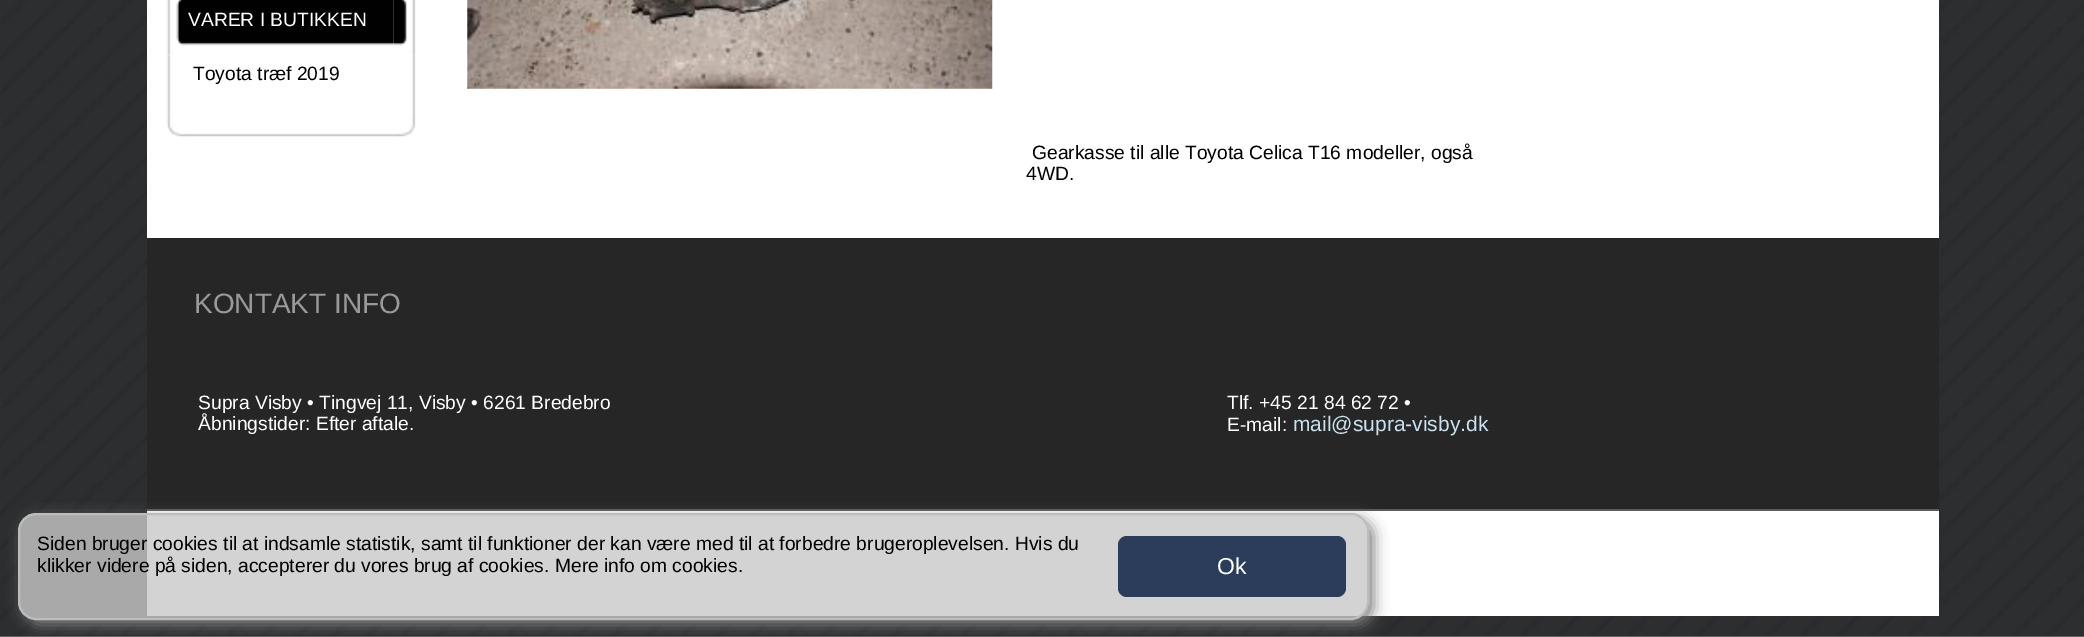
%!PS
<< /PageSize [2084 637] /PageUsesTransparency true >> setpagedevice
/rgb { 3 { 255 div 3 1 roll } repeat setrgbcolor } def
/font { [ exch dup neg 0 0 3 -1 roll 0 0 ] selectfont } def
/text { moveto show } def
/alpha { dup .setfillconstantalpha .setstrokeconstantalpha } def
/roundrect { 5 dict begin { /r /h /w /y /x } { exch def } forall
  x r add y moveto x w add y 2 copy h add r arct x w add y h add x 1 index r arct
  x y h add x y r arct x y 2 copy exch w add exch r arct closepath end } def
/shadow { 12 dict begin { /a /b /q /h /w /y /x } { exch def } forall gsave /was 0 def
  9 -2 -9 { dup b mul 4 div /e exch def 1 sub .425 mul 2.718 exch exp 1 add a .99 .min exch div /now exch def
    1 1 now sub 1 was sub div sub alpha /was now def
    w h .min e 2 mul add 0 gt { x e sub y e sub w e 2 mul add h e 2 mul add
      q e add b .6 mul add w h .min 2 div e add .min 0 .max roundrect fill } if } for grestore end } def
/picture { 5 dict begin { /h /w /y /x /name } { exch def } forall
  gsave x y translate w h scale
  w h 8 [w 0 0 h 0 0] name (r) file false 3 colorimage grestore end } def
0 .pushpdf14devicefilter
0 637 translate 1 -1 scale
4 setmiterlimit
153 153 153 rgb
0 0 2084 637 rectfill
(img_01.rgb) 0 0 2084 637 picture
255 255 255 rgb
147 0 1792 616 rectfill
(img_02.rgb) 166 0 23 56 picture
(img_03.rgb) 189 0 205 46 picture
(img_04.rgb) 393 0 23 56 picture
(img_05.rgb) 166 55 5 59 picture
(img_06.rgb) 412 55 4 59 picture
(img_07.rgb) 166 113 23 24 picture
(img_08.rgb) 189 133 205 4 picture
(img_09.rgb) 393 113 23 24 picture
(img_10.rgb) 467 0 526 89 picture
38 38 38 rgb
147 238 1792 271 rectfill
94 90 88 rgb
147 509 1792 2 rectfill
gsave
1 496 moveto 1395 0 rlineto 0 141 rlineto -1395 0 rlineto closepath 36 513 moveto 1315 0 rlineto 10 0 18 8 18 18 rcurveto 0 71 rlineto 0 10 -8 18 -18 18 rcurveto -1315 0 rlineto -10 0 -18 -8 -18 -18 rcurveto 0 -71 rlineto 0 -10 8 -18 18 -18 rcurveto closepath eoclip newpath
129 129 129 rgb
23 518 1351 107 18 7 1 shadow
grestore
0.8 alpha
200 200 200 rgb
19 514 1349 105 17 roundrect fill
1 alpha
189 189 189 rgb
2 setlinewidth
19 514 1349 105 17 roundrect stroke
44 61 91 rgb
1118 536 228 61 9 roundrect fill
/LiberationSans-Regular 19.25 font
255 255 255 rgb
(VARER I BUTIKKEN) 188 26 text
0 0 0 rgb
(Toyota træf 2019) 193 80 text
(Gearkasse til alle Toyota Celica T16 modeller, også) 1032 159 text
(4WD.) 1026 180 text
/LiberationSans-Regular 28 font
153 153 153 rgb
(KONTAKT INFO) 194 313 text
/LiberationSans-Regular 19.25 font
255 255 255 rgb
(Supra Visby • Tingvej 11, Visby • 6261 Bredebro) 198 409 text
(Åbningstider: Efter aftale.) 198 430 text
(Tlf. +45 21 84 62 72 •) 1227 409 text
(E-mail:) 1227 431 text
/LiberationSans-Regular 21 font
202 225 240 rgb
(mail@supra-visby.dk) 1293 431 text
/LiberationSans-Regular 19.25 font
0 0 0 rgb
(Siden bruger cookies til at indsamle statistik, samt til funktioner der kan være med til at forbedre brugeroplevelsen. Hvis du) 37 550 text
(klikker videre på siden, accepterer du vores brug af cookies. Mere info om cookies.) 37 572 text
/LiberationSans-Regular 23 font
255 255 255 rgb
(Ok) 1217 574 text
.poppdf14devicefilter showpage
